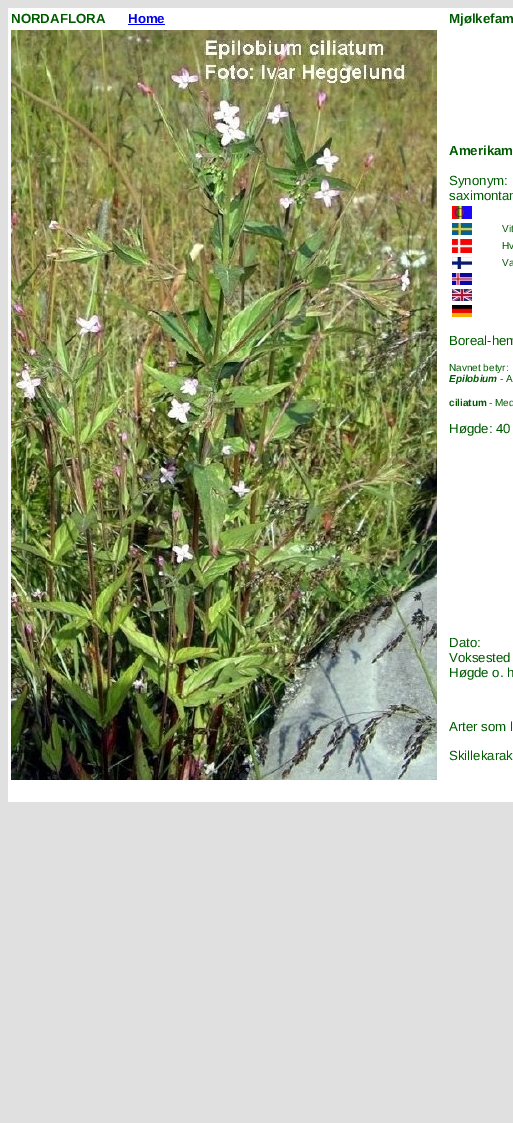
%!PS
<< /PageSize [513 1123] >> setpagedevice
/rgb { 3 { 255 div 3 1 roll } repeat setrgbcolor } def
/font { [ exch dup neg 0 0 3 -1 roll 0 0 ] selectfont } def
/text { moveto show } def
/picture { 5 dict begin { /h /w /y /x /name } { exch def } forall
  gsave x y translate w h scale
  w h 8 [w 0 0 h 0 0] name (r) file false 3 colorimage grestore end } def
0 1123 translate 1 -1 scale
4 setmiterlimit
224 224 224 rgb
0 0 513 1123 rectfill
255 255 255 rgb
8 8 505 794 rectfill
0 0 238 rgb
128 24 37 1 rectfill
(img_01.rgb) 11 30 426 750 picture
(img_02.rgb) 452 206 20 13 picture
(img_03.rgb) 452 223 20 12 picture
(img_04.rgb) 452 239 20 14 picture
(img_05.rgb) 452 257 20 12 picture
(img_06.rgb) 452 273 20 12 picture
(img_07.rgb) 452 289 20 12 picture
(img_08.rgb) 452 305 20 12 picture
/LiberationSans-Bold 13.25 font
0 91 0 rgb
(NORDAFLORA) 11 23 text
0 0 238 rgb
(Home) 128 23 text
0 91 0 rgb
(Mjølkefam) 449 23 text
(Amerikam) 449 155 text
/LiberationSans-Regular 13.25 font
(Synonym:) 449 185 text
(saximontan) 449 200 text
/LiberationSans-Regular 10 font
(Vit) 502 232 text
(Hv) 502 249 text
(Va) 502 266 text
/LiberationSans-Regular 13.25 font
(Boreal-hem) 449 345 text
/LiberationSans-Regular 10 font
(Navnet betyr:) 449 371 text
/LiberationSans-BoldItalic 10 font
(Epilobium) 449 382 text
/LiberationSans-Regular 10 font
(- A) 500 382 text
/LiberationSans-Bold 10 font
(ciliatum) 449 406 text
/LiberationSans-Regular 10 font
(- Med) 489 406 text
/LiberationSans-Regular 13.25 font
(Høgde: 40) 449 433 text
(Dato:) 449 647 text
(Voksested) 449 662 text
(Høgde o. h) 449 677 text
(Arter som l) 449 731 text
(Skillekarak) 449 760 text
showpage
